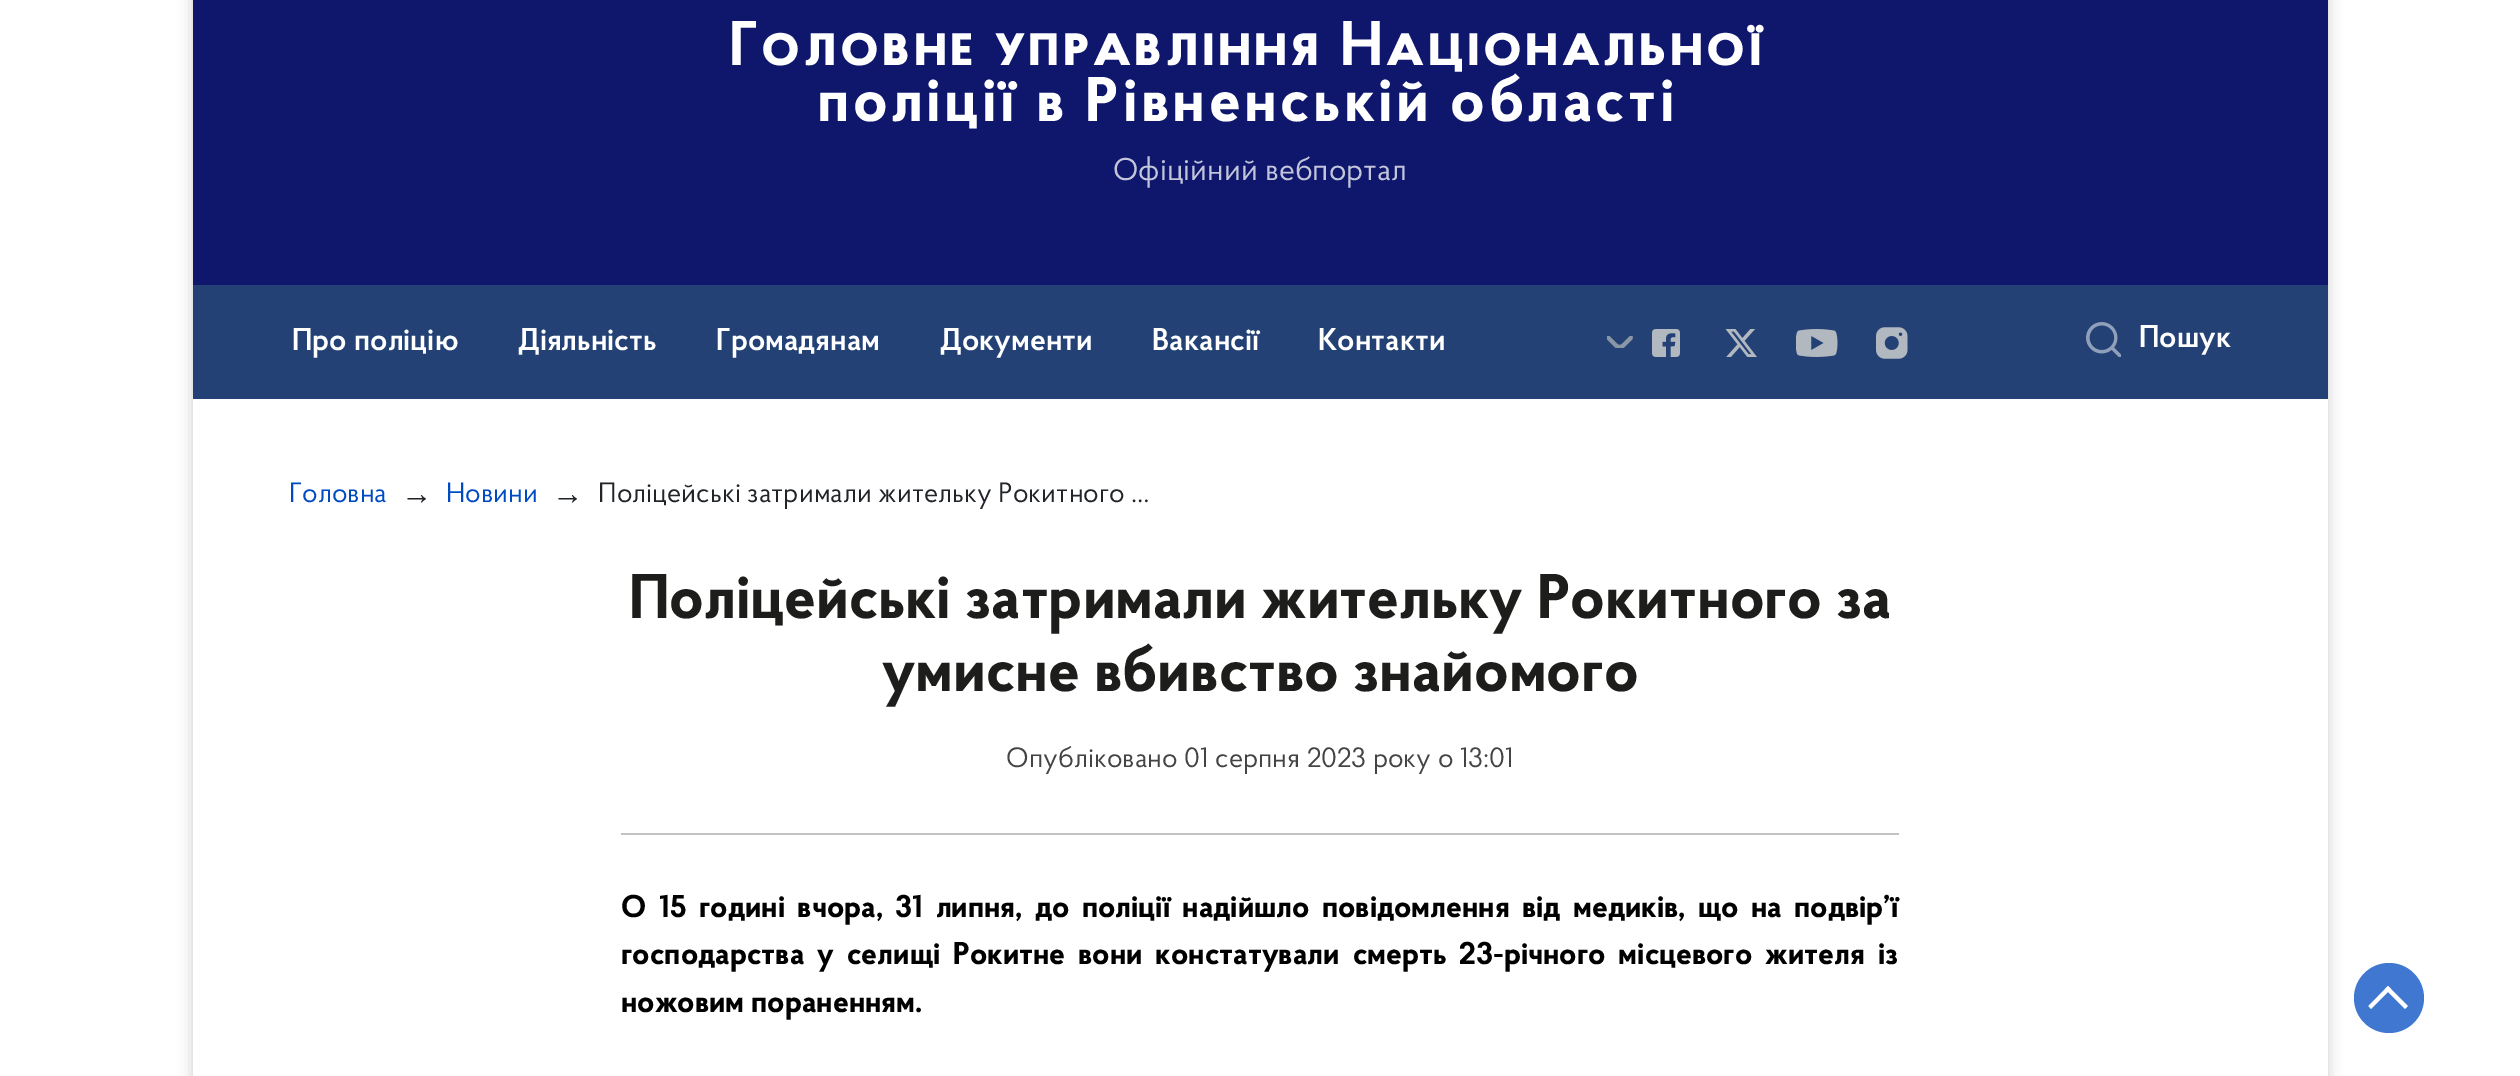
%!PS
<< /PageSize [2520 1076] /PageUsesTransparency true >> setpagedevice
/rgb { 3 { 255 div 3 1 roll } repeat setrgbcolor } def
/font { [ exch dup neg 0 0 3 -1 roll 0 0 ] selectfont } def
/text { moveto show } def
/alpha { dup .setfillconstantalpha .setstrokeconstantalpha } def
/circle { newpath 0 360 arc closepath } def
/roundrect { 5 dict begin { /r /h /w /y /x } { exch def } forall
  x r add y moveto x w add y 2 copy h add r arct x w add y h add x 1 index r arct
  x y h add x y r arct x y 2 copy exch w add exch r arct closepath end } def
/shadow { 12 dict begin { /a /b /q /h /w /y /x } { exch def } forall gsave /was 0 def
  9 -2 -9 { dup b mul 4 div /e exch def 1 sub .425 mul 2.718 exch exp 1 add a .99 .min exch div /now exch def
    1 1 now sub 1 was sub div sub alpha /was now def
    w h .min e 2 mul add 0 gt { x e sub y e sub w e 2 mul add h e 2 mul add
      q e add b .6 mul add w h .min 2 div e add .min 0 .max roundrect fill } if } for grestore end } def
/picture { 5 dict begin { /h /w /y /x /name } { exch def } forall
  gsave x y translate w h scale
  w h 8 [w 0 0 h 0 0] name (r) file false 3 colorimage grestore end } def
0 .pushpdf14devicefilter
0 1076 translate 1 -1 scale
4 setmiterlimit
255 255 255 rgb
0 0 2520 1076 rectfill
0 0 0 rgb
193 -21 2135 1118 0 7 0.2 shadow
255 255 255 rgb
193 399 2135 677 rectfill
15 23 109 rgb
193 0 2135 285 rectfill
35 65 116 rgb
193 285 2135 114 rectfill
(img_01.rgb) 1607 336 26 12 picture
(img_02.rgb) 1652 329 28 28 picture
(img_03.rgb) 1725 329 32 28 picture
(img_04.rgb) 1796 329 42 28 picture
(img_05.rgb) 1876 327 32 32 picture
(img_06.rgb) 2086 322 35 35 picture
194 194 194 rgb
621 833 1278 2 rectfill
64 120 209 rgb
2389 998 35 circle fill
255 255 255 rgb
2385 989 moveto 3 -3 rlineto 20 20 rlineto -3 3 rlineto closepath fill
2388 986 moveto 3 3 rlineto -20 20 rlineto -2.5 -3 rlineto closepath fill
/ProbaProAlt-Bold 63 font
729 65 moveto 3.5 0 (Головне управління Національної) ashow
/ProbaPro-Bold 63 font
817 121 moveto 3.5 0 (поліції в Рівненській області) ashow
/ProbaPro-Regular 31.5 font
195 197 219 rgb
(Офіційний вебпортал) 1113 180 text
/ProbaPro-SemiBold 31.5 font
255 255 255 rgb
(Про поліцію) 292 350 text
(Діяльність) 518 350 text
(Громадянам) 716 350 text
(Документи) 940 350 text
(Вакансії) 1152 350 text
(Контакти) 1318 350 text
(Пошук) 2139 347 text
/ProbaPro-Regular 28 font
0 75 193 rgb
(Головна) 289 502 text
/LiberationSans-Regular 31.5 font
33 37 41 rgb
(→) 401 504 text
/ProbaPro-Regular 28 font
0 75 193 rgb
(Новини) 446 502 text
/LiberationSans-Regular 31.5 font
33 37 41 rgb
(→) 552 504 text
/ProbaPro-Regular 28 font
(Поліцейські затримали жительку Рокитного …) 598 502 text
/ProbaPro-Bold 63 font
29 29 27 rgb
(Поліцейські затримали жительку Рокитного за) 629 618 text
(умисне вбивство знайомого) 882 691 text
/ProbaPro-Regular 28 font
68 68 68 rgb
(Опубліковано 01 серпня 2023 року о 13:01) 1006 767 text
/ProbaPro-Bold 31.5 font
0 0 0 rgb
621 917 moveto 5.1 0 32 (О 15 годині вчора, 31 липня, до поліції надійшло повідомлення від медиків, що на подвір’ї) widthshow
621 964 moveto 5.75 0 32 (господарства у селищі Рокитне вони констатували смерть 23-річного місцевого жителя із) widthshow
(ножовим пораненням.) 621 1012 text
.poppdf14devicefilter showpage
